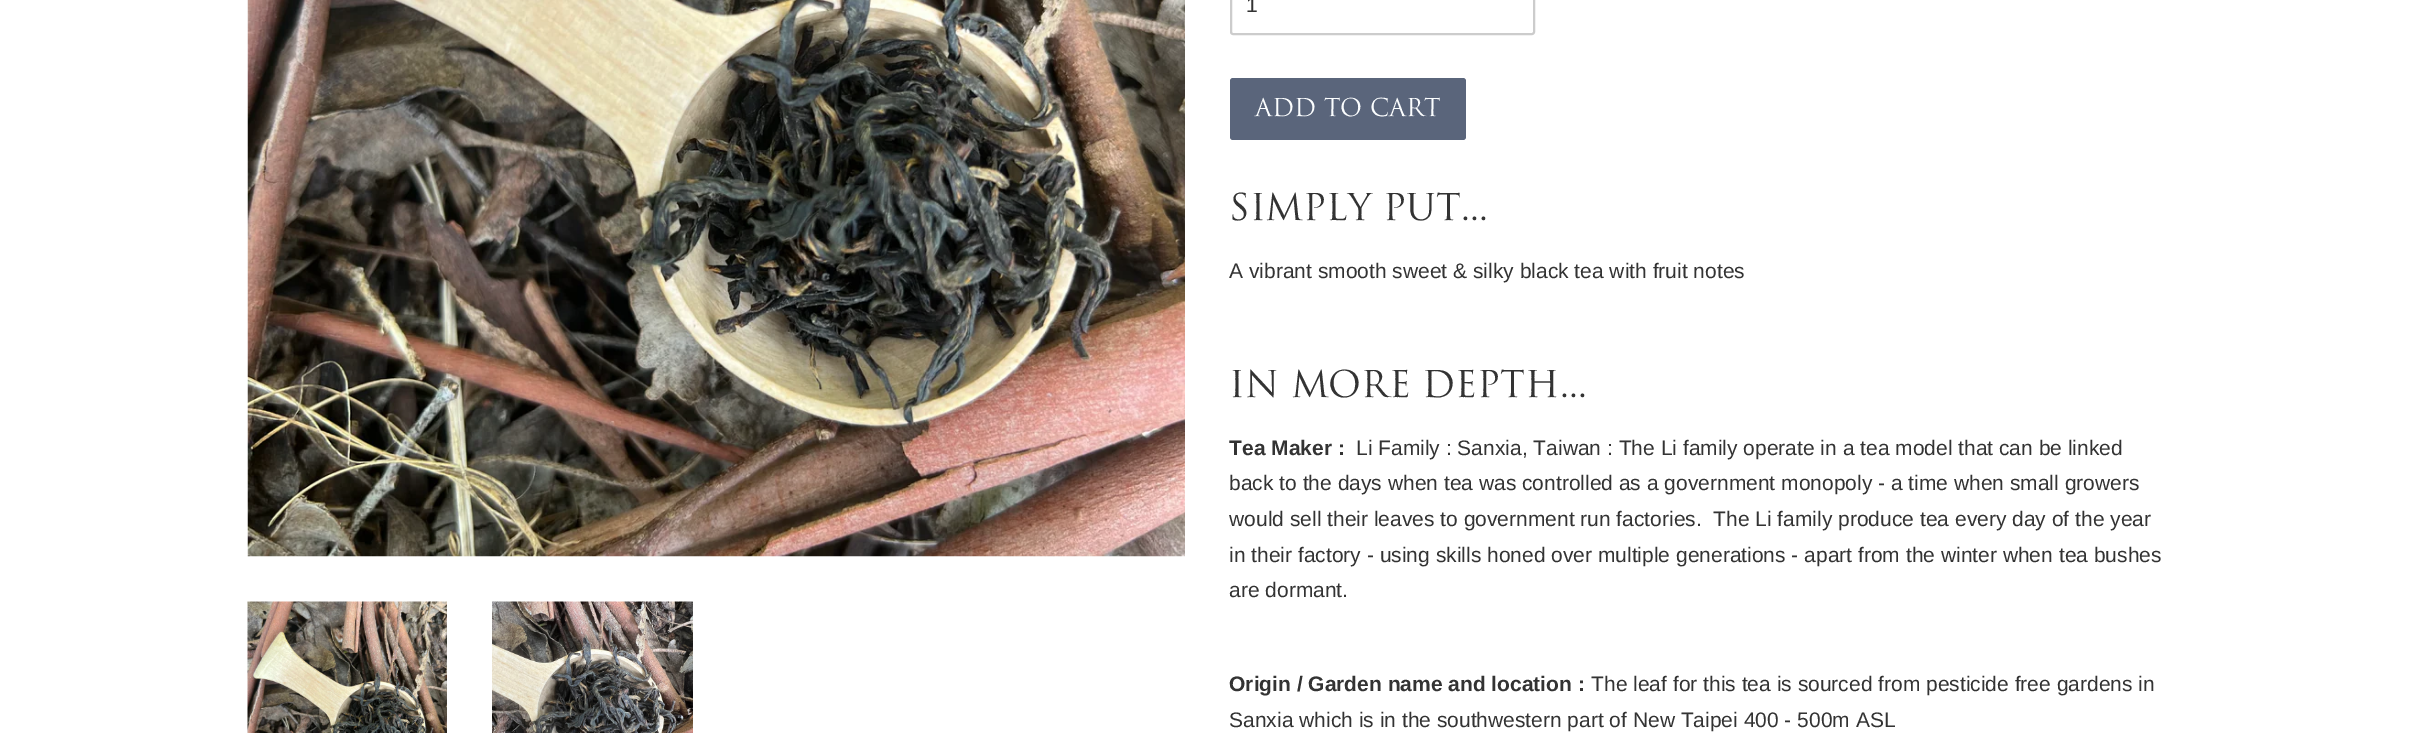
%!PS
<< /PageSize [2413 733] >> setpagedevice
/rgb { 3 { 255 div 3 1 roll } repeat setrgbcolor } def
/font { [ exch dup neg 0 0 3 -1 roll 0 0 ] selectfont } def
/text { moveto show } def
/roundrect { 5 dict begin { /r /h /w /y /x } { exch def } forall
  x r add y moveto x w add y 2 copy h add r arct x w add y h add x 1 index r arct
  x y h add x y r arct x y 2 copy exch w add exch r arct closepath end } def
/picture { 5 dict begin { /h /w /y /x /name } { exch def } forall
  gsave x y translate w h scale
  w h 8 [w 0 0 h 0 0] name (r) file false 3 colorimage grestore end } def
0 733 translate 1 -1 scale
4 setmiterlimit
255 255 255 rgb
0 0 2413 733 rectfill
(img_01.rgb) 247 0 938 557 picture
(img_02.rgb) 247 601 200 132 picture
(img_03.rgb) 492 601 201 132 picture
204 204 204 rgb
2 setlinewidth
1231 -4 303 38 2 roundrect stroke
90 101 123 rgb
1230 78 236 62 3 roundrect fill
/LiberationSans-Regular 21 font
51 51 51 rgb
(1) 1246 12 text
/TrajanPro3-Regular 24 font
252 254 255 rgb
(ADD TO CART) 1255 116 text
/TrajanPro3-Regular 36 font
51 51 51 rgb
(SIMPLY PUT...) 1229 220 text
/LiberationSans-Regular 21 font
(A vibrant smooth sweet & silky black tea with fruit notes) 1229 278 text
/TrajanPro3-Regular 36 font
(IN MORE DEPTH...) 1229 397 text
/LiberationSans-Bold 21 font
(Tea Maker :) 1229 455 text
/LiberationSans-Regular 21 font
(Li Family : Sanxia, Taiwan : The Li family operate in a tea model that can be linked) 1356 455 text
(back to the days when tea was controlled as a government monopoly - a time when small growers) 1229 490 text
(would sell their leaves to government run factories.  The Li family produce tea every day of the year) 1229 526 text
(in their factory - using skills honed over multiple generations - apart from the winter when tea bushes) 1229 562 text
(are dormant.) 1229 597 text
/LiberationSans-Bold 21 font
(Origin / Garden name and location :) 1229 691 text
/LiberationSans-Regular 21 font
(The leaf for this tea is sourced from pesticide free gardens in) 1591 691 text
(Sanxia which is in the southwestern part of New Taipei 400 - 500m ASL) 1229 727 text
showpage
